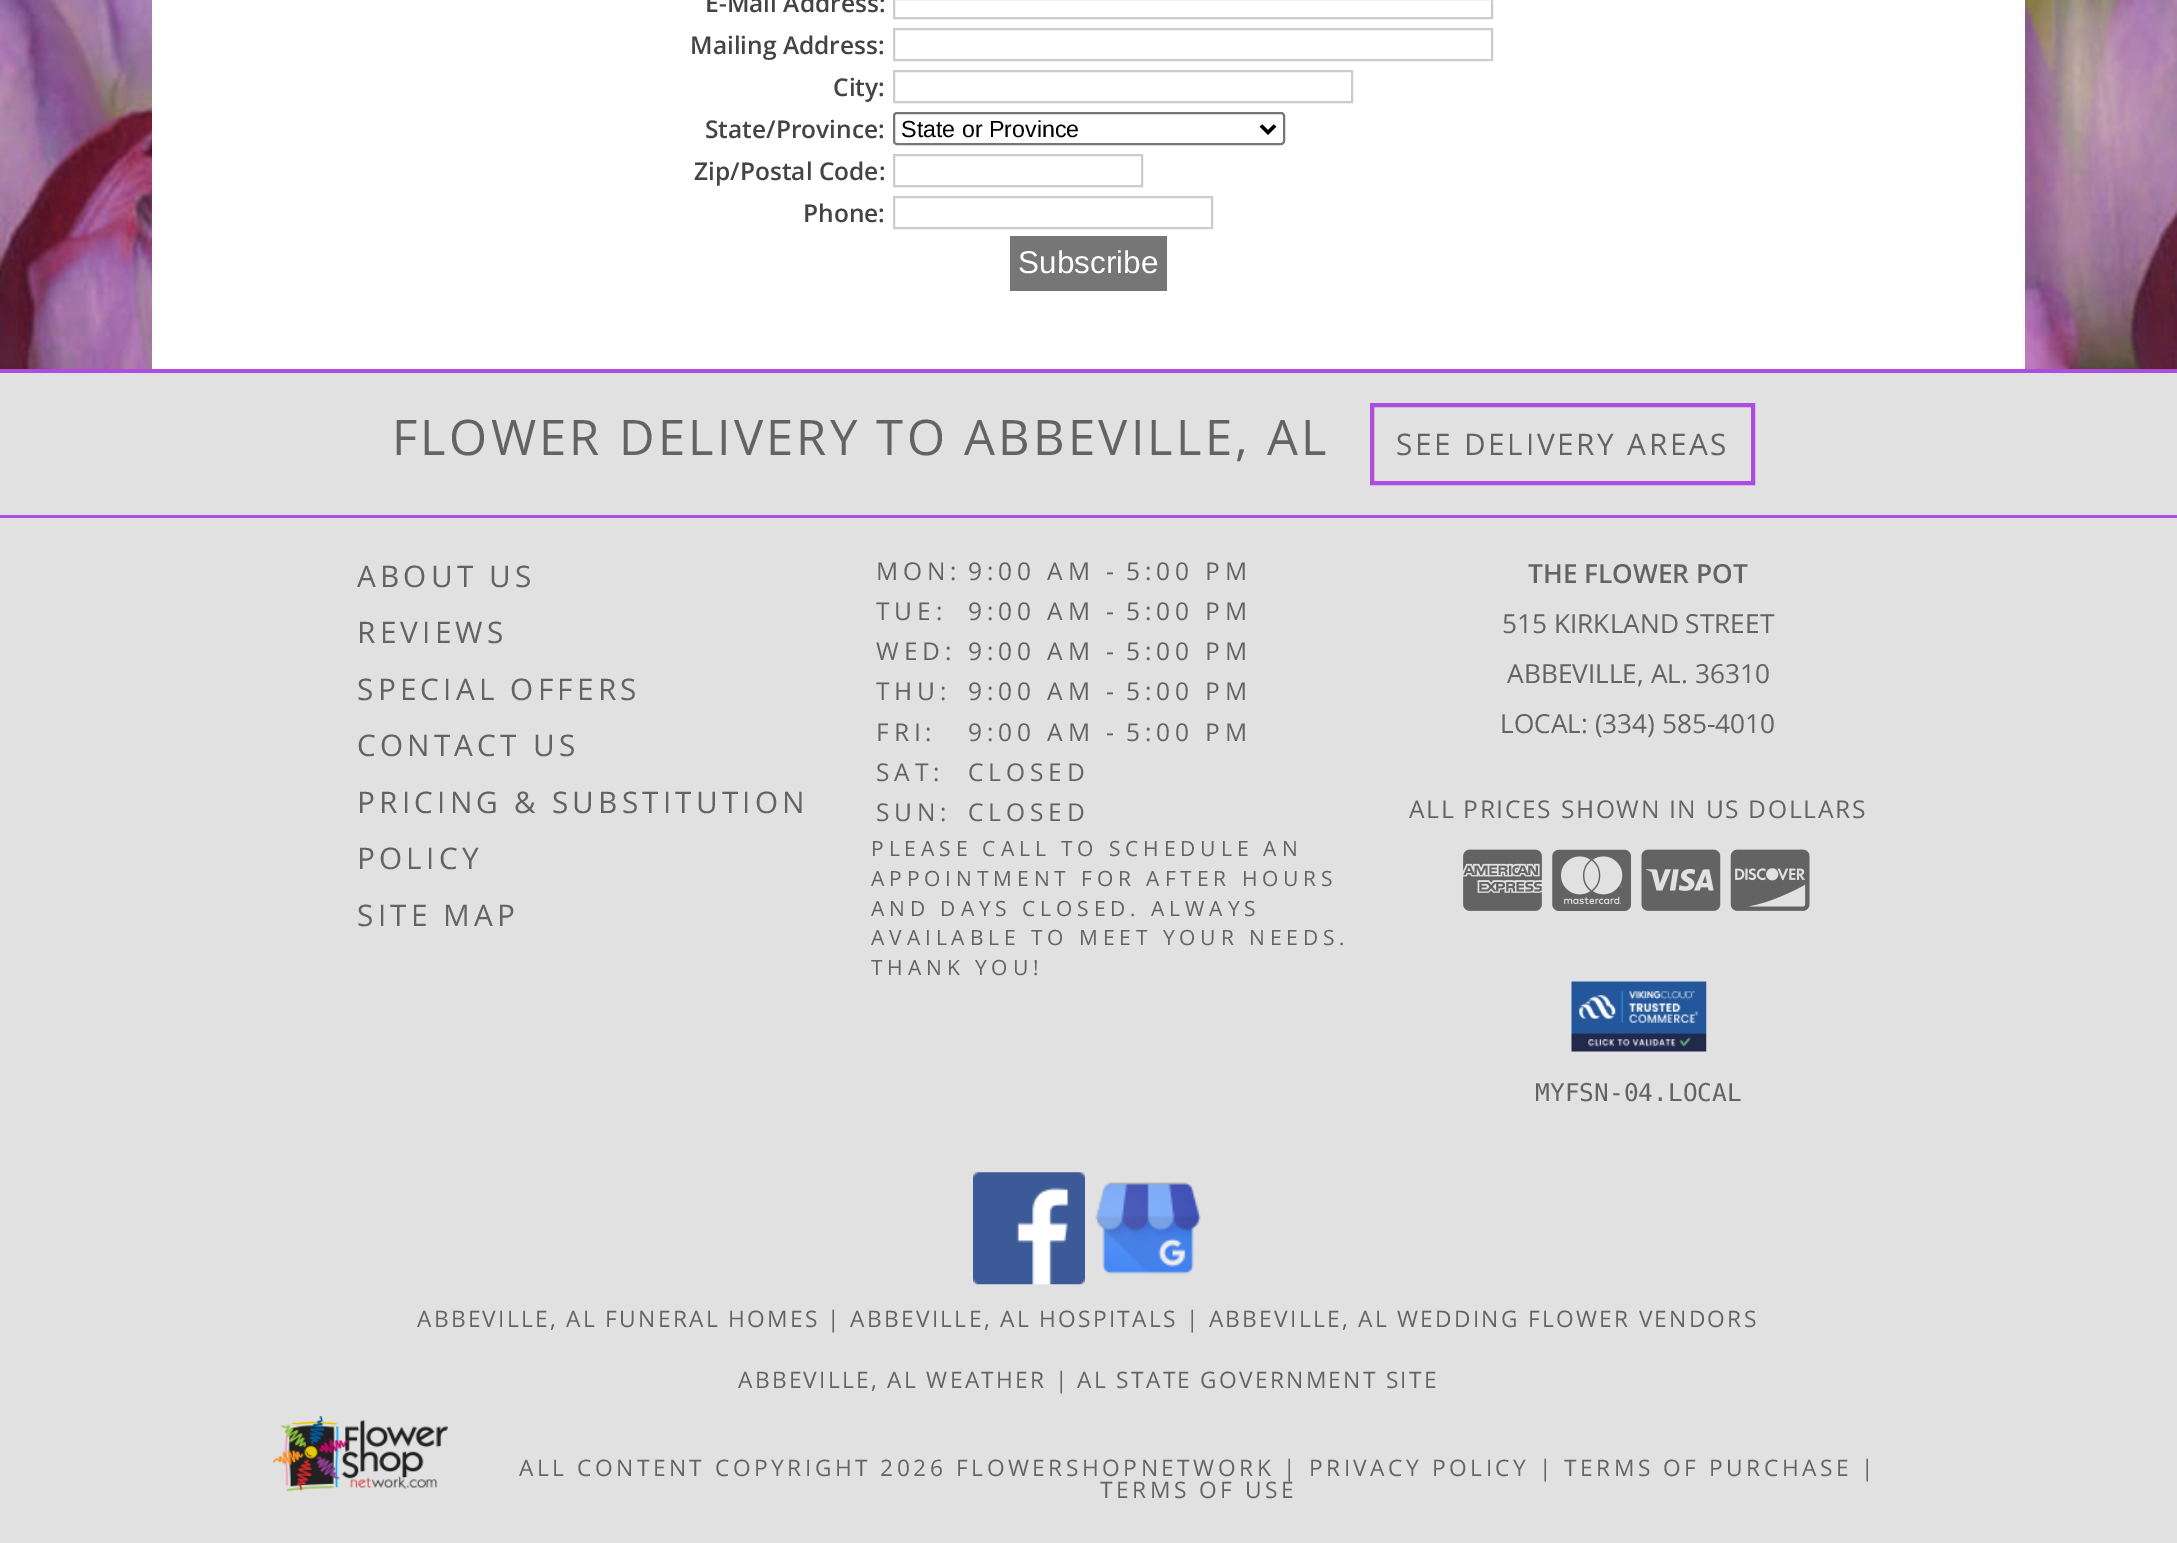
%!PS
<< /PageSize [2177 1543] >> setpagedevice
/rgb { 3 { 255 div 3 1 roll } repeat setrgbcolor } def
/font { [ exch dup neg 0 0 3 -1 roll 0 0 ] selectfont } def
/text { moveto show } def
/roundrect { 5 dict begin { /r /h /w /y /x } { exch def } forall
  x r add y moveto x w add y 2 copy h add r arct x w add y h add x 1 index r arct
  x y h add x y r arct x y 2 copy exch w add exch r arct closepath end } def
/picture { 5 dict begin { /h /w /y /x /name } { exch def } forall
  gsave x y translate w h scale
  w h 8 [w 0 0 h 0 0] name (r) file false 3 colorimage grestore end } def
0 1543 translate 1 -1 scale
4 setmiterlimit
255 255 255 rgb
0 0 2177 1543 rectfill
(img_01.rgb) 0 0 2177 369 picture
152 0 1873 369 rectfill
204 204 204 rgb
2 setlinewidth
894 -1 598 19 rectstroke
894 29 598 31 rectstroke
894 71 458 31 rectstroke
118 118 118 rgb
894 113 390 31 3 roundrect stroke
0 0 0 rgb
3.5 setlinewidth
1261 125.5 moveto 7 7 rlineto 7 -7 rlineto stroke
204 204 204 rgb
2 setlinewidth
894 155 248 31 rectstroke
894 197 318 31 rectstroke
118 118 118 rgb
1010 236 157 55 rectfill
225 225 225 rgb
0 373 2177 142 rectfill
172 77 223 rgb
0 369 2177 4 rectfill
0 515 2177 3 rectfill
4 setlinewidth
1372 405 381 78 rectstroke
225 225 225 rgb
0 518 2177 1025 rectfill
(img_02.rgb) 1463 849 79 62 picture
(img_03.rgb) 1552 849 79 62 picture
(img_04.rgb) 1641 849 80 62 picture
(img_05.rgb) 1730 849 80 62 picture
(img_06.rgb) 1571 981 136 71 picture
(img_07.rgb) 973 1172 112 113 picture
(img_08.rgb) 1095 1182 106 93 picture
(img_09.rgb) 273 1416 175 75 picture
/OpenSans-SemiBold 24.5 font
68 68 68 rgb
(E-Mail Address:) 705 12 text
(Mailing Address:) 690 54 text
(City:) 833 96 text
(State/Province:) 705 138 text
/LiberationSans-Regular 23.25 font
0 0 0 rgb
(State or Province) 901 137 text
/OpenSans-SemiBold 24.5 font
68 68 68 rgb
(Zip/Postal Code:) 694 180 text
(Phone:) 803 222 text
/LiberationSans-Regular 31.5 font
255 255 255 rgb
(Subscribe) 1018 273 text
/OpenSans-Regular 49 font
99 99 99 rgb
392 455 moveto 3.2 0 (FLOWER DELIVERY TO ABBEVILLE, AL) ashow
/OpenSans-Regular 29.75 font
1396 455 moveto 2.7 0 (SEE DELIVERY AREAS) ashow
357 587 moveto 4.2 0 (ABOUT US) ashow
357 643 moveto 4.2 0 (REVIEWS) ashow
357 700 moveto 4.2 0 (SPECIAL OFFERS) ashow
357 756 moveto 4.2 0 (CONTACT US) ashow
357 813 moveto 4.2 0 (PRICING & SUBSTITUTION) ashow
357 869 moveto 4.2 0 (POLICY) ashow
357 926 moveto 4.2 0 (SITE MAP) ashow
/OpenSans-Regular 24.5 font
876 580 moveto 4.9 0 (MON:) ashow
968 580 moveto 4.9 0 (9:00 AM -) ashow
1126 580 moveto 4.9 0 (5:00 PM) ashow
876 620 moveto 4.9 0 (TUE:) ashow
968 620 moveto 4.9 0 (9:00 AM -) ashow
1126 620 moveto 4.9 0 (5:00 PM) ashow
876 660 moveto 4.9 0 (WED:) ashow
968 660 moveto 4.9 0 (9:00 AM -) ashow
1126 660 moveto 4.9 0 (5:00 PM) ashow
876 700 moveto 4.9 0 (THU:) ashow
968 700 moveto 4.9 0 (9:00 AM -) ashow
1126 700 moveto 4.9 0 (5:00 PM) ashow
876 741 moveto 4.9 0 (FRI:) ashow
968 741 moveto 4.9 0 (9:00 AM -) ashow
1126 741 moveto 4.9 0 (5:00 PM) ashow
876 781 moveto 4.9 0 (SAT:) ashow
968 781 moveto 4.9 0 (CLOSED) ashow
876 821 moveto 4.9 0 (SUN:) ashow
968 821 moveto 4.9 0 (CLOSED) ashow
/OpenSans-Regular 21 font
871 856 moveto 4.9 0 (PLEASE CALL TO SCHEDULE AN) ashow
871 886 moveto 4.9 0 (APPOINTMENT FOR AFTER HOURS) ashow
871 916 moveto 4.9 0 (AND DAYS CLOSED. ALWAYS) ashow
871 945 moveto 4.9 0 (AVAILABLE TO MEET YOUR NEEDS.) ashow
871 975 moveto 4.9 0 (THANK YOU!) ashow
/OpenSans-SemiBold 26.25 font
(THE FLOWER POT) 1528 583 text
/OpenSans-Regular 26.25 font
(515 KIRKLAND STREET) 1502 633 text
(ABBEVILLE, AL. 36310) 1507 683 text
(LOCAL: \(334\) 585-4010) 1500 733 text
/OpenSans-Regular 24.5 font
1409 818 moveto 1.7 0 (ALL PRICES SHOWN IN US DOLLARS) ashow
/DejaVuSansMono-Regular 24.5 font
(MYFSN-04.LOCAL) 1535 1101 text
/OpenSans-Regular 22.75 font
417 1327 moveto 2.27 0 (ABBEVILLE, AL FUNERAL HOMES | ABBEVILLE, AL HOSPITALS | ABBEVILLE, AL WEDDING FLOWER VENDORS) ashow
738 1388 moveto 2.27 0 (ABBEVILLE, AL WEATHER | AL STATE GOVERNMENT SITE) ashow
519 1476 moveto 3.5 0 (ALL CONTENT COPYRIGHT 2026 FLOWERSHOPNETWORK | PRIVACY POLICY | TERMS OF PURCHASE |) ashow
1100 1498 moveto 3.5 0 (TERMS OF USE) ashow
showpage
